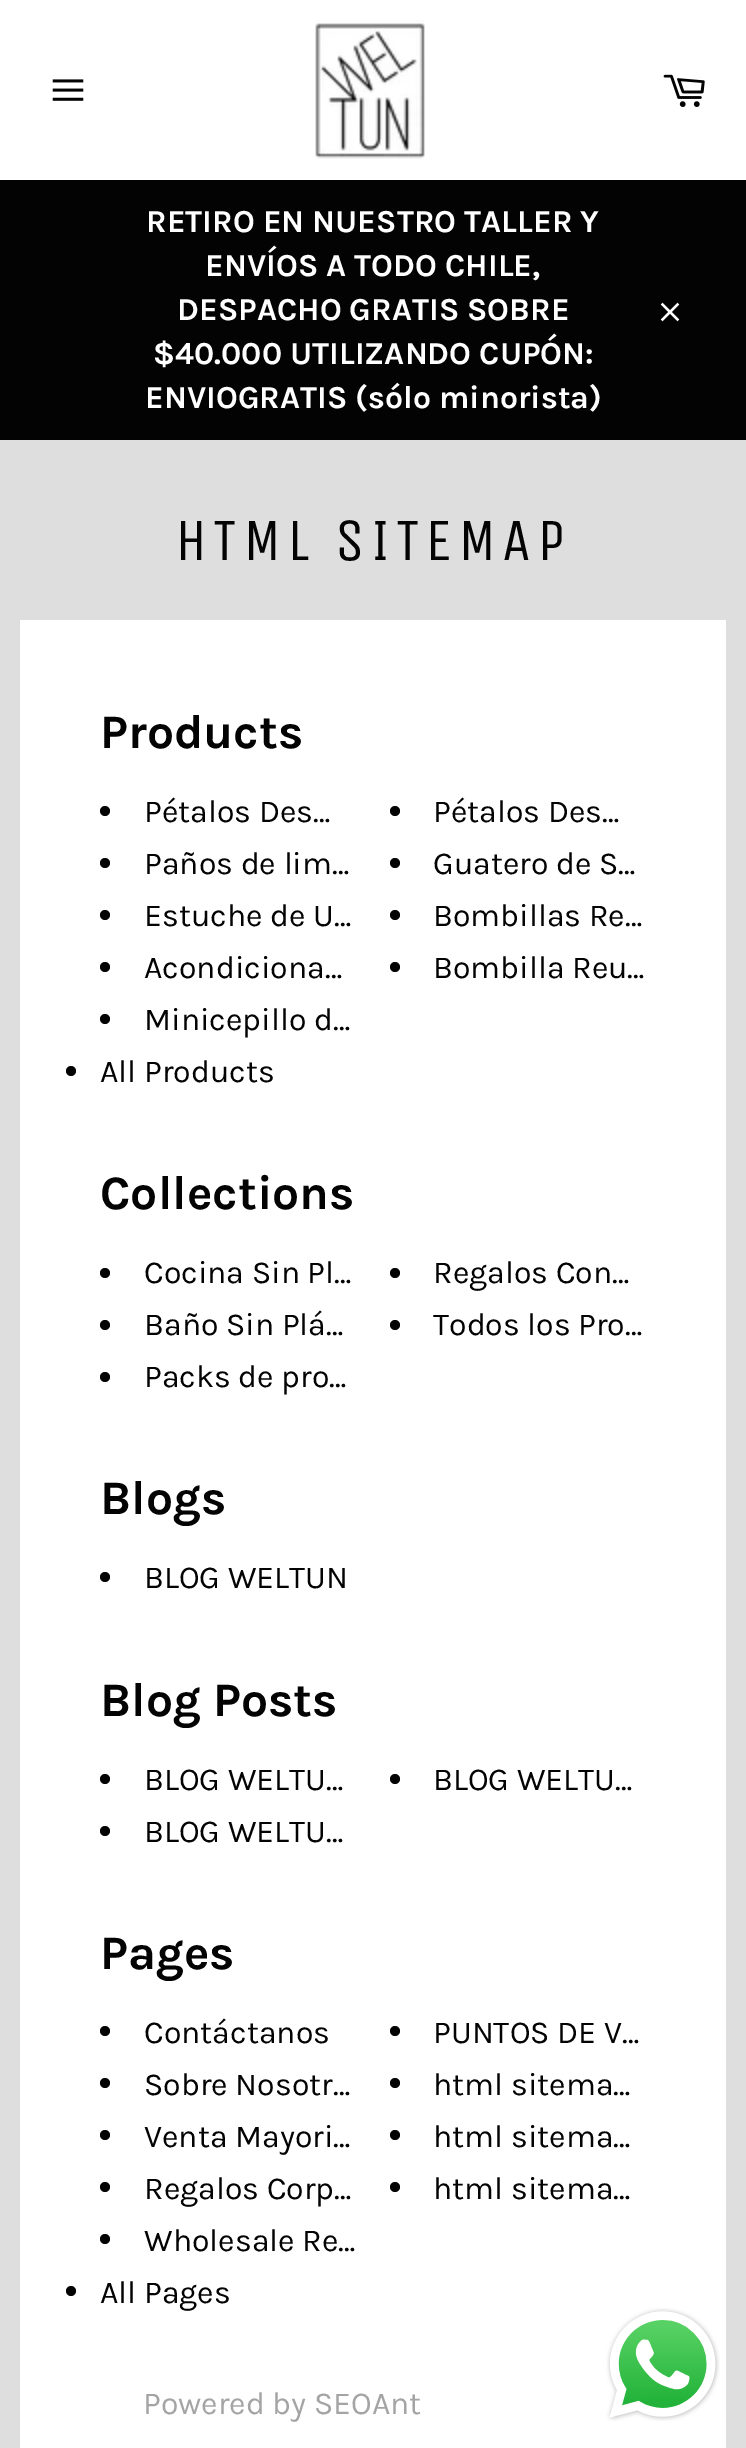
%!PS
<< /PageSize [746 2448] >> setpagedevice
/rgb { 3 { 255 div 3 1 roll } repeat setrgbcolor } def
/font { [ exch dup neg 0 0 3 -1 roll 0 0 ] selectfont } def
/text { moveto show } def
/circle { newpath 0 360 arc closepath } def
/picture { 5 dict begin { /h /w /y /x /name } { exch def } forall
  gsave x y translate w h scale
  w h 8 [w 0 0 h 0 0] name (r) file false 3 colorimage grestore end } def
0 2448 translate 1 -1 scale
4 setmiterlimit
222 222 222 rgb
0 0 746 2448 rectfill
255 255 255 rgb
0 0 746 180 rectfill
(img_01.rgb) 52 79 32 22 picture
(img_02.rgb) 315 20 110 139 picture
(img_03.rgb) 663 74 42 33 picture
3 3 3 rgb
0 180 746 260 rectfill
(img_04.rgb) 660 302 20 20 picture
255 255 255 rgb
20 620 706 1828 rectfill
3 3 3 rgb
105 811 5 circle fill
395 811 5 circle fill
105 863 5 circle fill
395 863 5 circle fill
105 915 5 circle fill
395 915 5 circle fill
105 967 5 circle fill
395 967 5 circle fill
105 1019 5 circle fill
71 1071 5 circle fill
105 1273 5 circle fill
395 1273 5 circle fill
105 1325 5 circle fill
395 1325 5 circle fill
105 1377 5 circle fill
105 1577 5 circle fill
105 1779 5 circle fill
395 1779 5 circle fill
105 1831 5 circle fill
105 2031 5 circle fill
395 2031 5 circle fill
105 2083 5 circle fill
395 2083 5 circle fill
105 2135 5 circle fill
395 2135 5 circle fill
105 2187 5 circle fill
395 2187 5 circle fill
105 2239 5 circle fill
71 2291 5 circle fill
(img_05.rgb) 606 2308 114 113 picture
/Karla-Bold 32 font
255 255 255 rgb
(RETIRO EN NUESTRO TALLER Y) 146 232 text
(ENVÍOS A TODO CHILE,) 205 276 text
(DESPACHO GRATIS SOBRE) 177 320 text
($40.000 UTILIZANDO CUPÓN:) 153 364 text
(ENVIOGRATIS \(sólo minorista\)) 145 408 text
/UnicaOne-Regular 60 font
3 3 3 rgb
175 560 moveto 6 0 (HTML SITEMAP) ashow
/Karla-Bold 48 font
(Products) 100 748 text
/Karla-Regular 32 font
(Pétalos Des…) 144 822 text
(Pétalos Des…) 433 822 text
(Paños de lim…) 144 874 text
(Guatero de S…) 433 874 text
(Estuche de U…) 144 926 text
(Bombillas Re…) 433 926 text
(Acondiciona…) 144 978 text
(Bombilla Reu…) 433 978 text
(Minicepillo d…) 144 1030 text
(All Products) 100 1082 text
/Karla-Bold 48 font
(Collections) 100 1209 text
/Karla-Regular 32 font
(Cocina Sin Pl…) 144 1283 text
(Regalos Con…) 433 1283 text
(Baño Sin Plá…) 144 1335 text
(Todos los Pro…) 433 1335 text
(Packs de pro…) 144 1387 text
/Karla-Bold 48 font
(Blogs) 100 1514 text
/Karla-Regular 32 font
(BLOG WELTUN) 144 1588 text
/Karla-Bold 48 font
(Blog Posts) 100 1716 text
/Karla-Regular 32 font
(BLOG WELTU…) 144 1790 text
(BLOG WELTU…) 433 1790 text
(BLOG WELTU…) 144 1842 text
/Karla-Bold 48 font
(Pages) 100 1969 text
/Karla-Regular 32 font
(Contáctanos) 144 2043 text
(PUNTOS DE V…) 433 2043 text
(Sobre Nosotr…) 144 2095 text
(html sitema…) 433 2095 text
(Venta Mayori…) 144 2147 text
(html sitema…) 433 2147 text
(Regalos Corp…) 144 2199 text
(html sitema…) 433 2199 text
(Wholesale Re…) 144 2251 text
(All Pages) 100 2303 text
164 164 164 rgb
(Powered by SEOAnt) 143 2414 text
showpage
